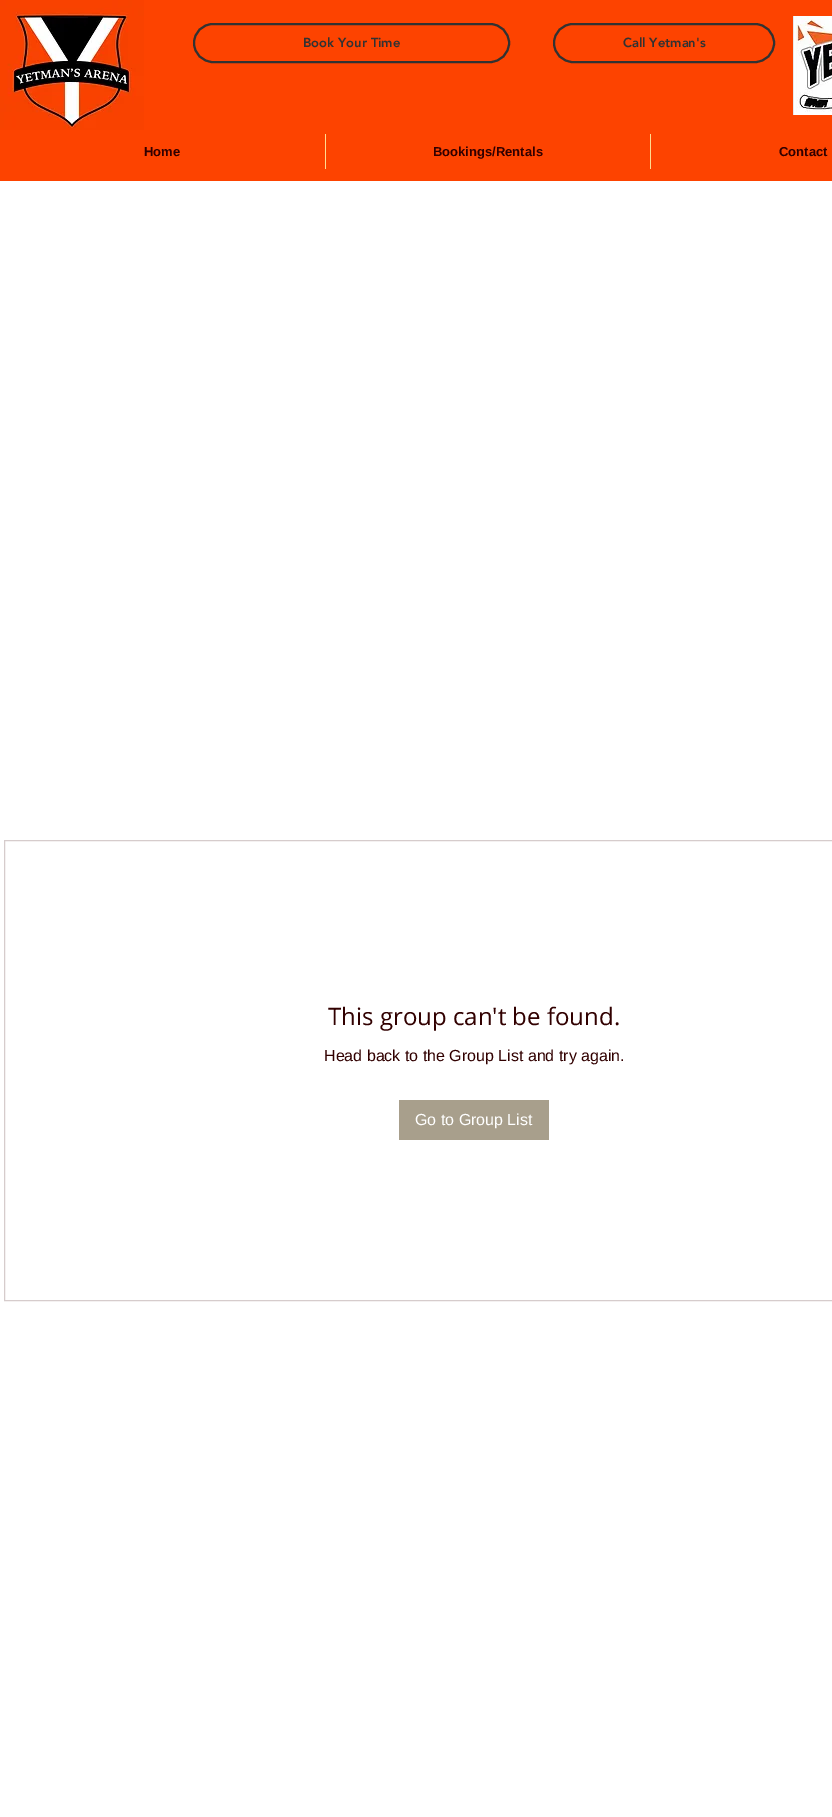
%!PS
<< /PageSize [832 1817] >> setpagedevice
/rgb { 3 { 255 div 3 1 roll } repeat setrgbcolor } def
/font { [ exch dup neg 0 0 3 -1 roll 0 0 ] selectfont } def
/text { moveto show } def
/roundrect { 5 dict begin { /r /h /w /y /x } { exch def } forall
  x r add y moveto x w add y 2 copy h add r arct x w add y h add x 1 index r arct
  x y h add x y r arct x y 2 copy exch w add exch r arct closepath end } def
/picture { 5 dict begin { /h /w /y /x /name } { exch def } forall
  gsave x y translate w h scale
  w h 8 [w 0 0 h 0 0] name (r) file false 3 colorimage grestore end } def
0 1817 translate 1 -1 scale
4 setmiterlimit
255 255 255 rgb
0 0 832 1817 rectfill
253 67 0 rgb
0 0 832 181 rectfill
(img_01.rgb) 0 0 144 130 picture
50 50 50 rgb
2 setlinewidth
194 24 315 38 19 roundrect stroke
554 24 220 38 19 roundrect stroke
(img_02.rgb) 793 16 39 99 picture
255 219 144 rgb
325 134 1 35 rectfill
650 134 1 35 rectfill
214 204 204 rgb
1 setlinewidth
4.5 840.5 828 460 rectstroke
168 159 140 rgb
399 1100 150 40 rectfill
/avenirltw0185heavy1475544-Black 13 font
50 50 50 rgb
(Book Your Time) 303 47 text
(Call Yetman's) 623 47 text
/LiberationSans-Bold 13 font
49 0 0 rgb
(Home) 144 156 text
(Bookings/Rentals) 433 156 text
(Contact) 779 156 text
/OpenSans-Regular 24 font
(This group can't be found.) 328 1025 text
/LiberationSans-Regular 16 font
(Head back to the Group List and try again.) 324 1061 text
255 255 255 rgb
(Go to Group List) 415 1125 text
showpage
